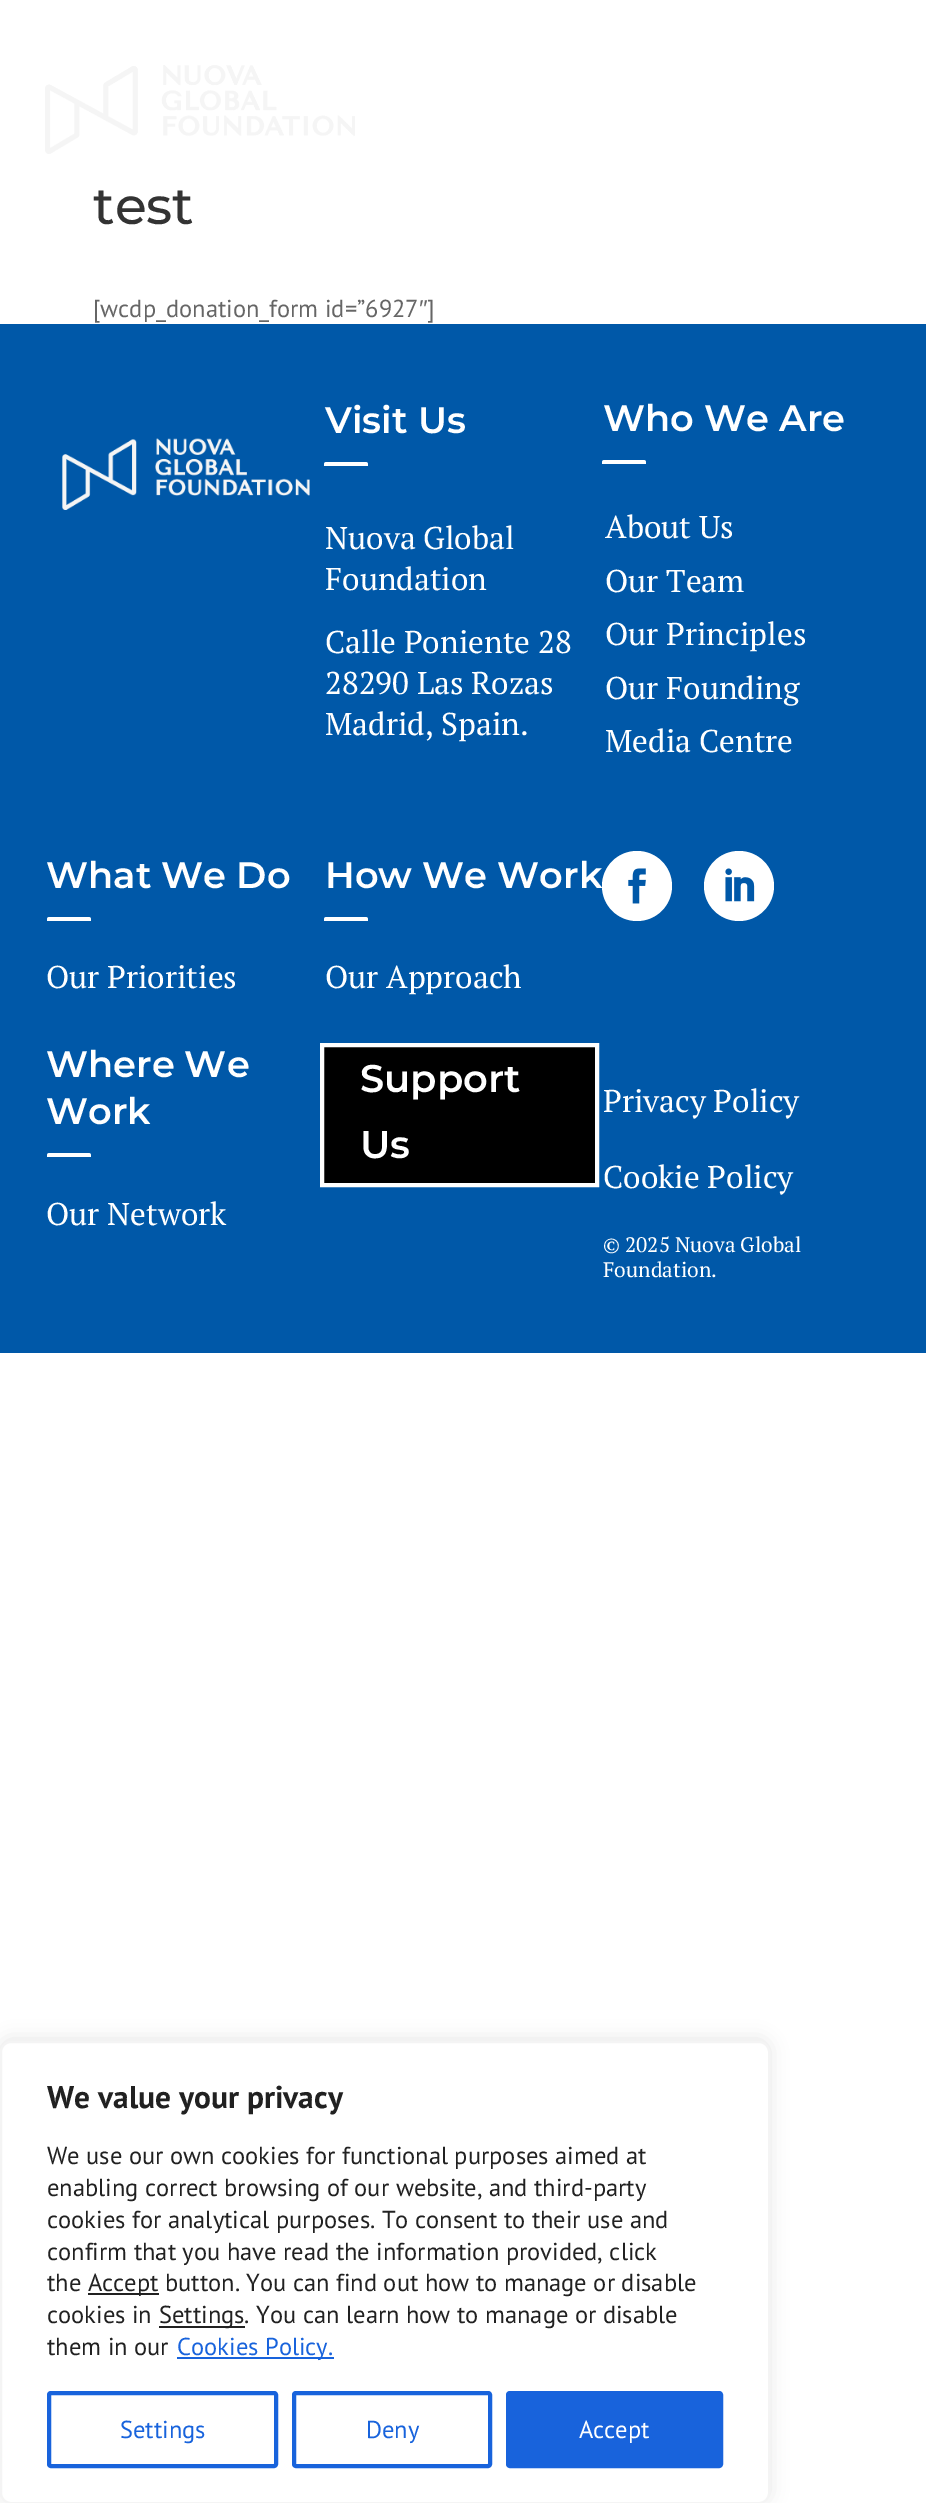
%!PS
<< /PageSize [926 2503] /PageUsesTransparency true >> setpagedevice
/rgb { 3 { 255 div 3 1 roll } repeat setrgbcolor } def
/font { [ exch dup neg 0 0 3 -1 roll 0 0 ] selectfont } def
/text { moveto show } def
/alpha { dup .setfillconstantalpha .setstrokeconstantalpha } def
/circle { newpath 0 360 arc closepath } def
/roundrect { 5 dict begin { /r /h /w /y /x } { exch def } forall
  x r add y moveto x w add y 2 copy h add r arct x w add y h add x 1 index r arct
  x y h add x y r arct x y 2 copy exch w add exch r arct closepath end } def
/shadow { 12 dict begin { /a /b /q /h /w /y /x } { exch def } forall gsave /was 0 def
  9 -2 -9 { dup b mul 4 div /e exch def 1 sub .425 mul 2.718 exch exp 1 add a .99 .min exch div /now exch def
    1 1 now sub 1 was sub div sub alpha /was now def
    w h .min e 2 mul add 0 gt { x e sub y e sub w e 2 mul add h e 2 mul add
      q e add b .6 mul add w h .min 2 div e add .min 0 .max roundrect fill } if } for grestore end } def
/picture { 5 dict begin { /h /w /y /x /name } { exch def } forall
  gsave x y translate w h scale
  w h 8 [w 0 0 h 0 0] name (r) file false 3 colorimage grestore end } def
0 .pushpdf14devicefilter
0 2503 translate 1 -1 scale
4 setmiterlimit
255 255 255 rgb
0 0 926 2503 rectfill
(img_01.rgb) 45 65 310 89 picture
0 88 168 rgb
0 324 926 1029 rectfill
(img_02.rgb) 62 438 248 72 picture
gsave
324 462 44 5 2.5 roundrect clip newpath
255 255 255 rgb
326.5 462 moveto 39 0 rlineto 1.5 0 2.5 1 2.5 2.5 rcurveto 0 1.5 rlineto -44 0 rlineto 0 -1.5 rlineto 0 -1.5 1 -2.5 2.5 -2.5 rcurveto closepath fill
grestore
gsave
602 460 44 5 2.5 roundrect clip newpath
255 255 255 rgb
604.5 460 moveto 39 0 rlineto 1.5 0 2.5 1 2.5 2.5 rcurveto 0 1.5 rlineto -44 0 rlineto 0 -1.5 rlineto 0 -1.5 1 -2.5 2.5 -2.5 rcurveto closepath fill
grestore
gsave
47 917 44 5 2.5 roundrect clip newpath
255 255 255 rgb
49.5 917 moveto 39 0 rlineto 1.5 0 2.5 1 2.5 2.5 rcurveto 0 1.5 rlineto -44 0 rlineto 0 -1.5 rlineto 0 -1.5 1 -2.5 2.5 -2.5 rcurveto closepath fill
grestore
gsave
47 1153 44 5 2.5 roundrect clip newpath
255 255 255 rgb
49.5 1153 moveto 39 0 rlineto 1.5 0 2.5 1 2.5 2.5 rcurveto 0 1.5 rlineto -44 0 rlineto 0 -1.5 rlineto 0 -1.5 1 -2.5 2.5 -2.5 rcurveto closepath fill
grestore
gsave
324 917 44 5 2.5 roundrect clip newpath
255 255 255 rgb
326.5 917 moveto 39 0 rlineto 1.5 0 2.5 1 2.5 2.5 rcurveto 0 1.5 rlineto -44 0 rlineto 0 -1.5 rlineto 0 -1.5 1 -2.5 2.5 -2.5 rcurveto closepath fill
grestore
0 0 0 rgb
322 1045 moveto 275 0 rlineto 0 140 rlineto -275 0 rlineto closepath gsave fill grestore
255 255 255 rgb
4 setlinewidth
stroke
637 886 35 circle fill
(img_03.rgb) 628 868 18 36 picture
739 886 35 circle fill
(img_04.rgb) 725 868 30 34 picture
gsave
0 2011 moveto 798 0 rlineto 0 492 rlineto -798 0 rlineto closepath 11 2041 moveto 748 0 rlineto 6 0 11 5 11 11 rcurveto 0 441 rlineto 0 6 -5 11 -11 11 rcurveto -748 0 rlineto -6 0 -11 -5 -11 -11 rcurveto 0 -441 rlineto 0 -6 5 -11 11 -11 rcurveto closepath eoclip newpath
172 171 171 rgb
0 2039 770 464 11 9 0.3 shadow
grestore
244 244 244 rgb
2 setlinewidth
1 2042 768 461 10 roundrect stroke
33 33 33 rgb
88 2293 71 2 rectfill
159 2326 86 2 rectfill
24 99 220 rgb
177 2357 157 2 rectfill
4 setlinewidth
49 2393 227 73 2 roundrect stroke
294 2393 196 73 2 roundrect stroke
508 2393 213 73 2 roundrect gsave fill grestore
stroke
/Montserrat-Thin 52 font
51 51 51 rgb
(test) 93 224 text
/PTSans-Regular 24.5 font
102 102 102 rgb
([wcdp_donation_form id=”6927) 93 317 text
/LiberationSans-Regular 24.5 font
(″) 419 317 text
/PTSans-Regular 24.5 font
(]) 427 317 text
/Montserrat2-Thin 36.75 font
255 255 255 rgb
(Visit Us) 325 433 text
/PTSerif-Regular 31.5 font
(Nuova Global) 325 549 text
(Foundation) 325 590 text
(Calle Poniente 28) 325 653 text
(28290 Las Rozas) 325 694 text
(Madrid, Spain.) 325 735 text
/Montserrat2-Thin 36.75 font
(Who We Are) 603 431 text
/PTSerif-Regular 31.5 font
(About Us) 605 538 text
(Our Team) 605 592 text
(Our Principles) 605 645 text
(Our Founding) 605 699 text
(Media Centre) 605 752 text
/Montserrat2-Thin 36.75 font
(What We Do) 46 888 text
/PTSerif-Regular 31.5 font
(Our Priorities) 46 988 text
/Montserrat2-Thin 36.75 font
(Where We) 46 1077 text
(Work) 46 1124 text
/PTSerif-Regular 31.5 font
(Our Network) 46 1225 text
/Montserrat2-Thin 36.75 font
(How We Work) 325 888 text
/PTSerif-Regular 31.5 font
(Our Approach) 325 988 text
/Montserrat2-Thin 38.5 font
(Support) 360 1092 text
(Us) 360 1158 text
/PTSerif-Regular 31.5 font
(Privacy Policy) 603 1112 text
(Cookie Policy) 603 1188 text
/PTSerif-Regular 21 font
(© 2025 Nuova Global) 603 1252 text
(Foundation.) 603 1277 text
/PTSans-Bold 31.5 font
33 33 33 rgb
(We value your privacy) 47 2108 text
/PTSans-Regular 24.5 font
(We use our own cookies for functional purposes aimed at) 47 2164 text
(enabling correct browsing of our website, and third-party) 47 2196 text
(cookies for analytical purposes. To consent to their use and) 47 2228 text
(confirm that you have read the information provided, click) 47 2260 text
(the) 47 2291 text
(Accept button. You can find out how to manage or disable) 88 2291 text
(cookies in) 47 2323 text
(Settings. You can learn how to manage or disable) 159 2323 text
(them in our) 47 2355 text
24 99 220 rgb
(Cookies Policy.) 177 2355 text
(Settings) 120 2438 text
(Deny) 366 2438 text
255 255 255 rgb
(Accept) 579 2438 text
.poppdf14devicefilter showpage
